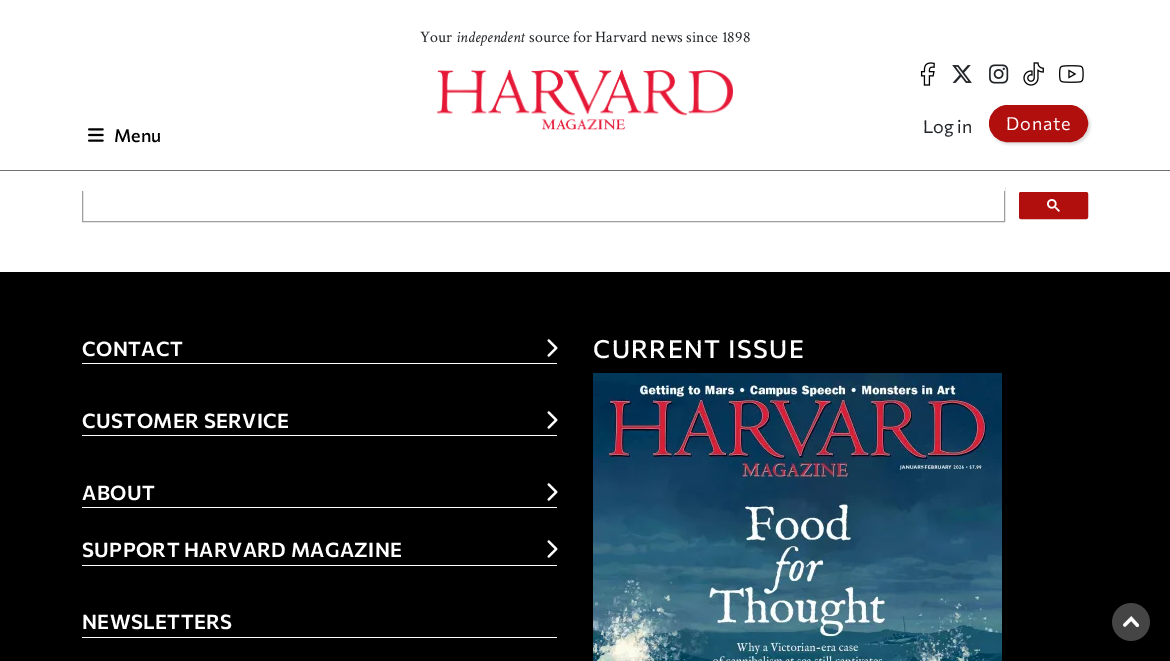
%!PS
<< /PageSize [1170 661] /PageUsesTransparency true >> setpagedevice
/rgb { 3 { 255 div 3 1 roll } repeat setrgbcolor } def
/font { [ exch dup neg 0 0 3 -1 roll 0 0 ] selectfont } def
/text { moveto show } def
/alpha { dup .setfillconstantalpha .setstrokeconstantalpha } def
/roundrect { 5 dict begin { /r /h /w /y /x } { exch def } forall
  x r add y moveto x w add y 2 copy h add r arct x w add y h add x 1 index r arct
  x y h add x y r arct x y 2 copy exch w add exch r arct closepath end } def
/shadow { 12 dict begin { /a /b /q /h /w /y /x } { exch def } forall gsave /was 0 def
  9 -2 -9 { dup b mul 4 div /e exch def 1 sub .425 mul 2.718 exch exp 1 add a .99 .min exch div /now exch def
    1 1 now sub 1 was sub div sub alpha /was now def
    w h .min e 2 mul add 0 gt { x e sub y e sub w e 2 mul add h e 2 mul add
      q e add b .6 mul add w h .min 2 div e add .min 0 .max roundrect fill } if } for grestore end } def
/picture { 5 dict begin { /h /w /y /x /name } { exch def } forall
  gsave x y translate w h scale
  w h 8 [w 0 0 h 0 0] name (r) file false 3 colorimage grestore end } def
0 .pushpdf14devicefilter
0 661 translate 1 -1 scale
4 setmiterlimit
255 255 255 rgb
0 0 1170 661 rectfill
112 112 112 rgb
0 170 1170 1 rectfill
(img_01.rgb) 437 70 296 60 picture
(img_02.rgb) 88 128 16 14 picture
(img_03.rgb) 920 62 15 24 picture
(img_04.rgb) 952 65 20 18 picture
(img_05.rgb) 989 64 20 20 picture
(img_06.rgb) 1023 62 21 24 picture
(img_07.rgb) 1059 65 25 18 picture
0 0 0 rgb
991 107 99 37 18.5 1.5 0.15 shadow
177 14 14 rgb
989.5 105.5 98 36 18 roundrect gsave fill grestore
stroke
158 158 158 rgb
82.5 187.5 922 34 rectstroke
255 255 255 rgb
82 187 923 4 rectfill
177 14 14 rgb
1019.5 192.5 68 26 1.5 roundrect gsave fill grestore
stroke
(img_08.rgb) 1047 199 13 13 picture
0 0 0 rgb
0 272 1170 389 rectfill
255 255 255 rgb
82 363 475 1 rectfill
(img_09.rgb) 547 339 11 18 picture
82 435 475 1 rectfill
(img_09.rgb) 547 411 11 18 picture
82 507 475 1 rectfill
(img_09.rgb) 547 483 11 18 picture
(img_10.rgb) 593 373 409 288 picture
82 565 475 1 rectfill
(img_09.rgb) 547 540 11 18 picture
82 637 475 1 rectfill
(img_11.rgb) 1112 603 38 38 picture
/CrimsonText-Regular 16 font
33 37 41 rgb
(Your) 420 42 text
/CrimsonText-Italic 16 font
(independent) 456 42 text
/CrimsonText-Regular 16 font
(source for Harvard news since 1898) 529 42 text
/Commissioner-Medium 18 font
0 0 0 rgb
(Menu) 114 142 text
/Commissioner-Regular 18 font
33 37 41 rgb
(Log in) 923 133 text
255 255 255 rgb
1006 130 moveto 0.75 0 (Donate) ashow
/Commissioner-SemiBold 20 font
82 356 moveto 0.4 0 (CONTACT) ashow
82 428 moveto 0.4 0 (CUSTOMER SERVICE) ashow
82 500 moveto 0.4 0 (ABOUT) ashow
/Commissioner-Medium 25 font
593 358 moveto 1.4 0 (CURRENT ISSUE) ashow
/Commissioner-SemiBold 20 font
82 557 moveto 0.4 0 (SUPPORT HARVARD MAGAZINE) ashow
82 629 moveto 0.4 0 (NEWSLETTERS) ashow
.poppdf14devicefilter showpage
